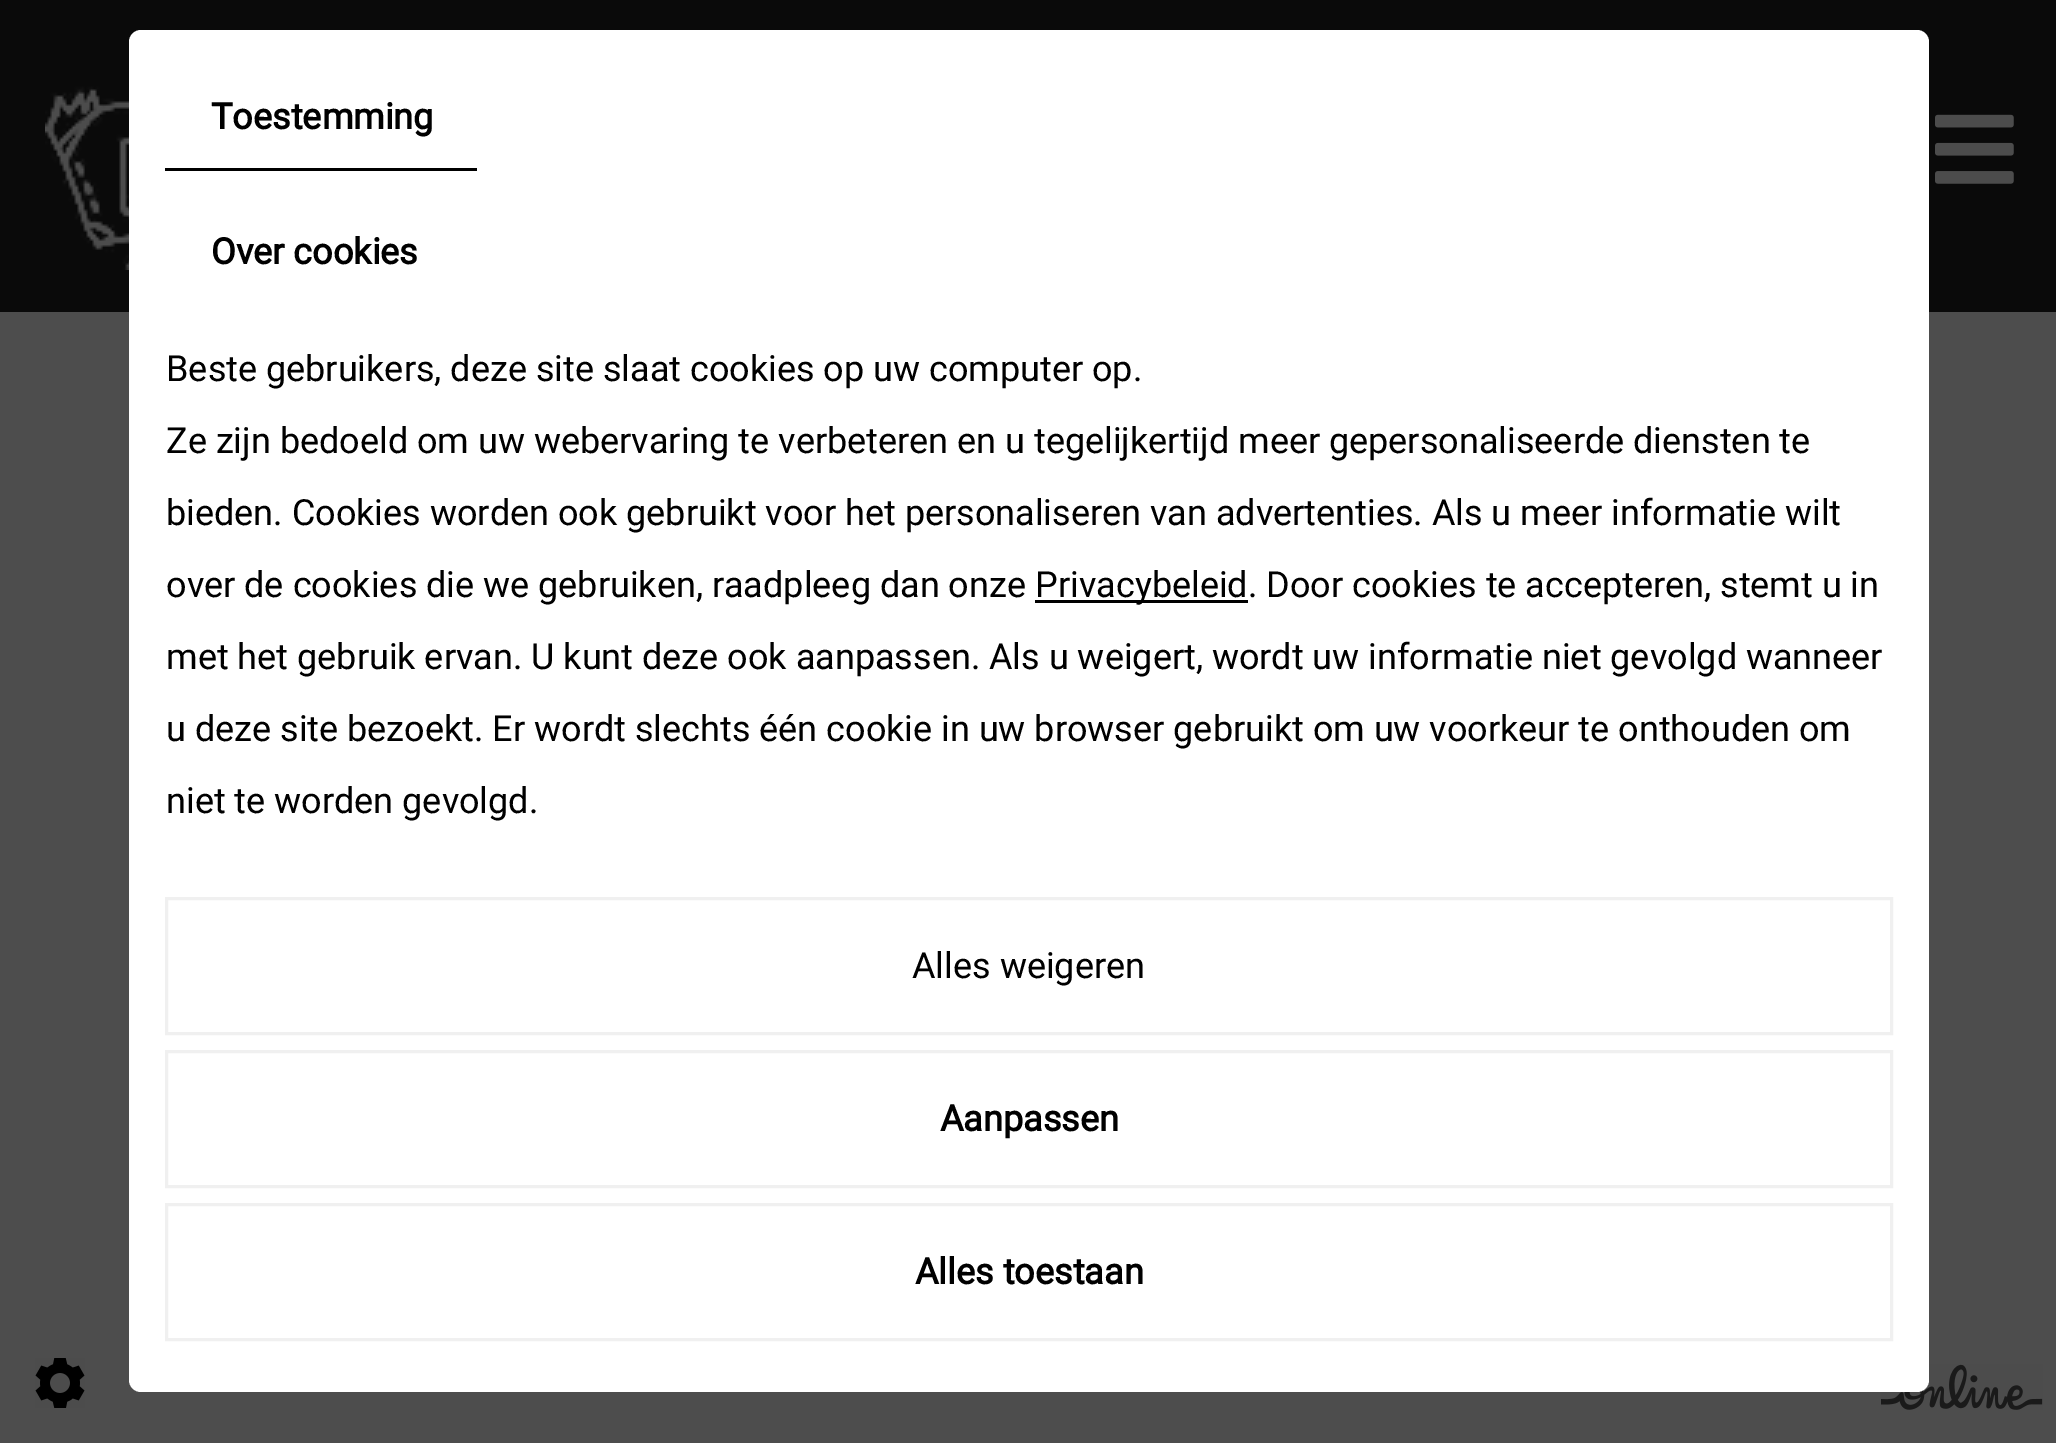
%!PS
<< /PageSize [2056 1443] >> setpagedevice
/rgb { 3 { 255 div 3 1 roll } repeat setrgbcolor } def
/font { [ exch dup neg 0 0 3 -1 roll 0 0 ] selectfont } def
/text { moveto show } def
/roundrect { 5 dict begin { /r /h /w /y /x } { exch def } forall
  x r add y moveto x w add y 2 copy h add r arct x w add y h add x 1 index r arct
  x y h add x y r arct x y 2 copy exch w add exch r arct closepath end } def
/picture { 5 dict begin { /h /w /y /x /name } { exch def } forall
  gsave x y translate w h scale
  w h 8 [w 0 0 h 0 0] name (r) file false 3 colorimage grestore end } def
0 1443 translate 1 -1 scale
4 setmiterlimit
77 77 77 rgb
0 0 2056 1443 rectfill
10 10 10 rgb
0 0 2056 312 rectfill
(img_01.rgb) 45 86 84 184 picture
(img_02.rgb) 1935 114 79 70 picture
(img_04.rgb) 1881 1364 162 46 picture
255 255 255 rgb
129 30 1800 1362 12 roundrect fill
0 0 0 rgb
165 168 312 3 rectfill
1035 600 213 3 rectfill
240 240 240 rgb
3 setlinewidth
166.5 898.5 1725 135 rectstroke
166.5 1051.5 1725 135 rectstroke
166.5 1204.5 1725 135 rectstroke
(img_03.rgb) 35 1358 50 50 picture
/Roboto-Bold 36 font
0 0 0 rgb
(Toestemming) 211 129 text
(Over cookies) 211 264 text
/Roboto-Regular 36 font
(Beste gebruikers, deze site slaat cookies op uw computer op.) 166 381 text
(Ze zijn bedoeld om uw webervaring te verbeteren en u tegelijkertijd meer gepersonaliseerde diensten te) 166 453 text
(bieden. Cookies worden ook gebruikt voor het personaliseren van advertenties. Als u meer informatie wilt) 166 525 text
(over de cookies die we gebruiken, raadpleeg dan onze) 166 597 text
(Privacybeleid. Door cookies te accepteren, stemt u in) 1035 597 text
(met het gebruik ervan. U kunt deze ook aanpassen. Als u weigert, wordt uw informatie niet gevolgd wanneer) 166 669 text
(u deze site bezoekt. Er wordt slechts één cookie in uw browser gebruikt om uw voorkeur te onthouden om) 166 741 text
(niet te worden gevolgd.) 166 813 text
(Alles weigeren) 912 978 text
/Roboto-Bold 36 font
(Aanpassen) 940 1131 text
(Alles toestaan) 915 1284 text
showpage
